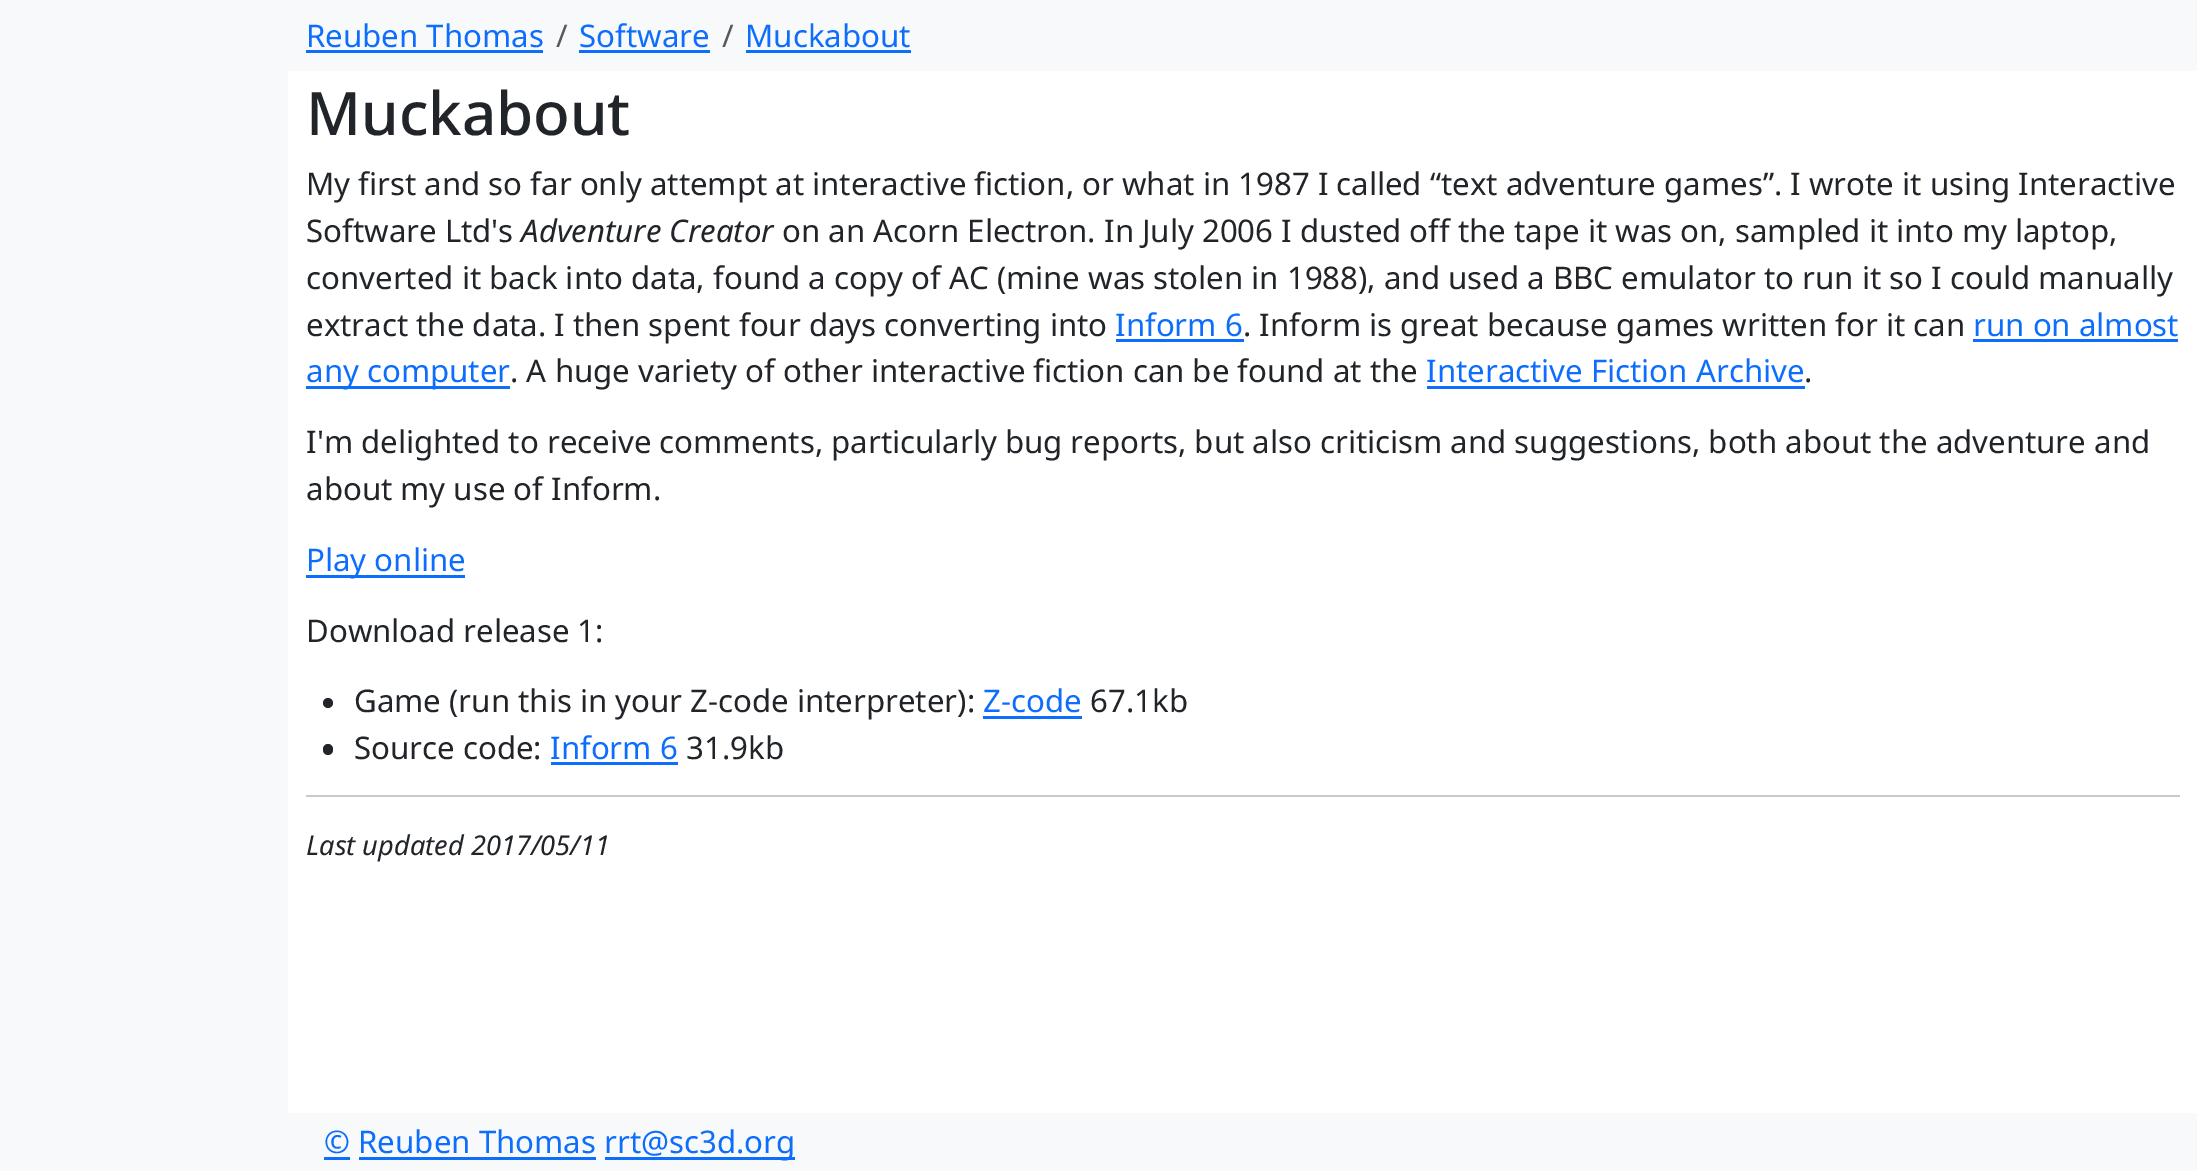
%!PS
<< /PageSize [2197 1171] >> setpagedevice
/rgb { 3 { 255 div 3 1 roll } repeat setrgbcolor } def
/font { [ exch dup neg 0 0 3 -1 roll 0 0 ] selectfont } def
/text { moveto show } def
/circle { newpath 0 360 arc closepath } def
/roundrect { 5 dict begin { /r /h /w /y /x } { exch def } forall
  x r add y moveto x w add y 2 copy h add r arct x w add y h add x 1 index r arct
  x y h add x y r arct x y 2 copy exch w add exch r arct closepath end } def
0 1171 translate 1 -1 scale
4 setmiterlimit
248 249 250 rgb
0 0 2197 1171 rectfill
13 110 253 rgb
306 50 237 3 rectfill
579 50 131 3 rectfill
746 50 165 3 rectfill
255 255 255 rgb
288 71 1909 1042 rectfill
13 110 253 rgb
1116 339 128 3 rectfill
1973 339 205 3 rectfill
306 386 204 3 rectfill
1427 386 378 3 rectfill
306 575 159 3 rectfill
33 37 41 rgb
328 703 5 circle fill
13 110 253 rgb
983 716 99 3 rectfill
33 37 41 rgb
323 744 10 11 5 roundrect fill
13 110 253 rgb
551 762 127 3 rectfill
200 201 202 rgb
306 795 1874 2 rectfill
13 110 253 rgb
324 1157 26 3 rectfill
359 1157 237 3 rectfill
605 1157 190 3 rectfill
/NotoSans-Regular 31.2 font
(Reuben Thomas) 306 47 text
87 90 93 rgb
(/) 556 47 text
13 110 253 rgb
(Software) 579 47 text
87 90 93 rgb
(/) 722 47 text
13 110 253 rgb
(Muckabout) 745 47 text
/NotoSans-Medium 60 font
33 37 41 rgb
(Muckabout) 306 135 text
/NotoSans-Regular 31.2 font
(My first and so far only attempt at interactive fiction, or what in 1987 I called “text adventure games”. I wrote it using Interactive) 306 195 text
(Software Ltd's) 306 242 text
/NotoSans-Italic 31.2 font
(Adventure Creator) 521 242 text
/NotoSans-Regular 31.2 font
(on an Acorn Electron. In July 2006 I dusted off the tape it was on, sampled it into my laptop,) 782 242 text
(converted it back into data, found a copy of AC \(mine was stolen in 1988\), and used a BBC emulator to run it so I could manually) 306 289 text
(extract the data. I then spent four days converting into) 306 336 text
13 110 253 rgb
(Inform 6) 1115 336 text
33 37 41 rgb
(. Inform is great because games written for it can) 1243 336 text
13 110 253 rgb
(run on almost) 1973 336 text
(any computer) 306 382 text
33 37 41 rgb
(. A huge variety of other interactive fiction can be found at the) 510 382 text
13 110 253 rgb
(Interactive Fiction Archive) 1426 382 text
33 37 41 rgb
(.) 1804 382 text
(I'm delighted to receive comments, particularly bug reports, but also criticism and suggestions, both about the adventure and) 306 453 text
(about my use of Inform.) 306 500 text
13 110 253 rgb
(Play online) 306 571 text
33 37 41 rgb
(Download release 1:) 306 642 text
(Game \(run this in your Z-code interpreter\):) 354 712 text
13 110 253 rgb
(Z-code) 983 712 text
33 37 41 rgb
(67.1kb) 1090 712 text
(Source code:) 354 759 text
13 110 253 rgb
(Inform 6) 550 759 text
33 37 41 rgb
(31.9kb) 686 759 text
/NotoSans-Italic 27.25 font
(Last updated 2017/05/11) 306 855 text
/NotoSans-Regular 31.2 font
13 110 253 rgb
(© Reuben Thomas) 324 1153 text
(rrt@sc3d.org) 604 1153 text
showpage
